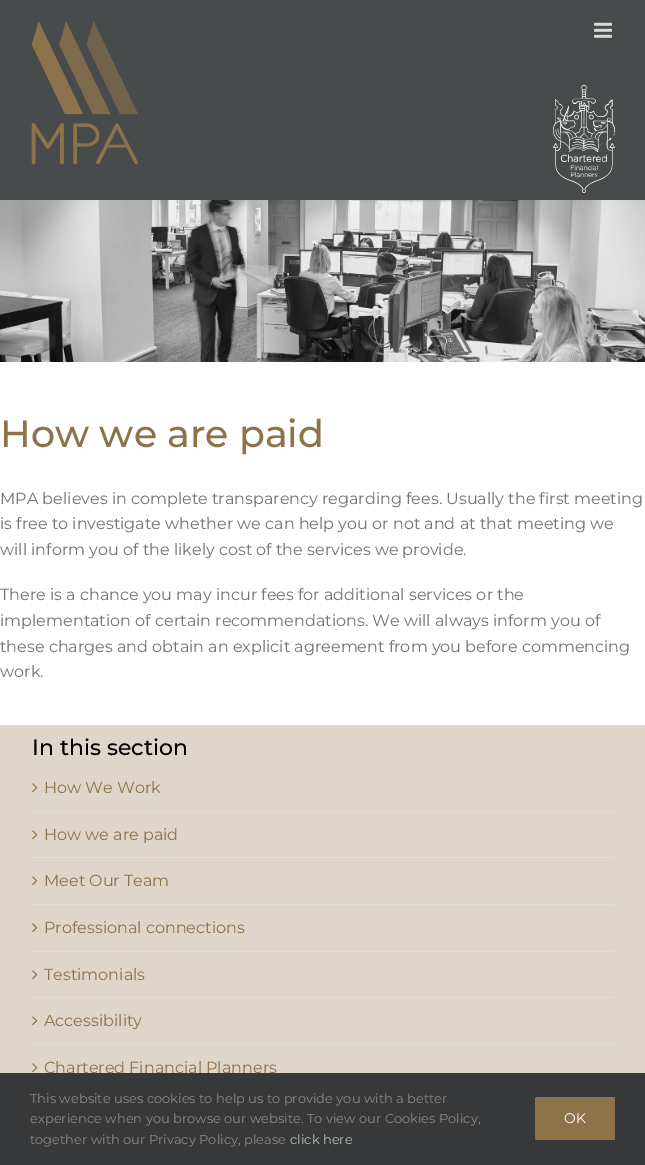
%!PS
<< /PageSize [645 1165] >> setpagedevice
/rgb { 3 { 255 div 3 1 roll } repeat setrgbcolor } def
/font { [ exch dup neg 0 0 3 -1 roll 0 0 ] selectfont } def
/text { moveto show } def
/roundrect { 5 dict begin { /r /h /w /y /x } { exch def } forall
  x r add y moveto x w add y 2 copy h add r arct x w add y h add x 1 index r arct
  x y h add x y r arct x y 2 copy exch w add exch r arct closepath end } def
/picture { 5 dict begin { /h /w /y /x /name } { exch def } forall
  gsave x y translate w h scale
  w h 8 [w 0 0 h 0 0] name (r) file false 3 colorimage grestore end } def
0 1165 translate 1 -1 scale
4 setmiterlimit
255 255 255 rgb
0 0 645 1165 rectfill
72 75 76 rgb
0 0 645 200 rectfill
(img_01.rgb) 31 21 107 144 picture
(img_02.rgb) 553 85 62 108 picture
(img_03.rgb) 594 22 18 16 picture
(img_04.rgb) 0 200 645 162 picture
222 214 201 rgb
0 725 645 348 rectfill
224 222 222 rgb
32 811 581 1 rectfill
(img_05.rgb) 32 783 6 10 picture
32 857 581 1 rectfill
(img_05.rgb) 32 830 6 10 picture
32 904 581 1 rectfill
(img_05.rgb) 32 876 6 10 picture
32 951 581 1 rectfill
(img_05.rgb) 32 923 6 10 picture
32 997 581 1 rectfill
(img_05.rgb) 32 970 6 10 picture
32 1044 581 1 rectfill
(img_05.rgb) 32 1016 6 10 picture
(img_05.rgb) 32 1063 6 10 picture
/Montserrat-Medium 38 font
141 115 74 rgb
(How we are paid) 0 447 text
/Montserrat-Regular 16 font
116 116 116 rgb
(MPA believes in complete transparency regarding fees. Usually the first meeting) 0 504 text
(is free to investigate whether we can help you or not and at that meeting we) 0 529 text
(will inform you of the likely cost of the services we provide.) 0 555 text
(There is a chance you may incur fees for additional services or the) 0 600 text
(implementation of certain recommendations. We will always inform you of) 0 626 text
(these charges and obtain an explicit agreement from you before commencing) 0 652 text
(work.) 0 677 text
/Montserrat-Medium 22 font
0 0 0 rgb
(In this section) 32 755 text
/Montserrat-Regular 16 font
141 115 74 rgb
(How We Work) 44 793 text
(How we are paid) 44 840 text
(Meet Our Team) 44 886 text
(Professional connections) 44 933 text
(Testimonials) 44 980 text
(Accessibility) 44 1026 text
(Chartered Financial Planners) 44 1073 text
54 56 57 rgb
0 1073 645 92 rectfill
/Montserrat-Regular 13 font
140 137 137 rgb
(This website uses cookies to help us to provide you with a better) 30 1103 text
(experience when you browse our website. To view our Cookies Policy,) 30 1123 text
(together with our Privacy Policy, please) 30 1144 text
191 191 191 rgb
(click here) 290 1144 text
141 115 74 rgb
535 1097 80 43 2 roundrect fill
/Montserrat-Regular 14 font
255 255 255 rgb
(OK) 564 1123 text
showpage
